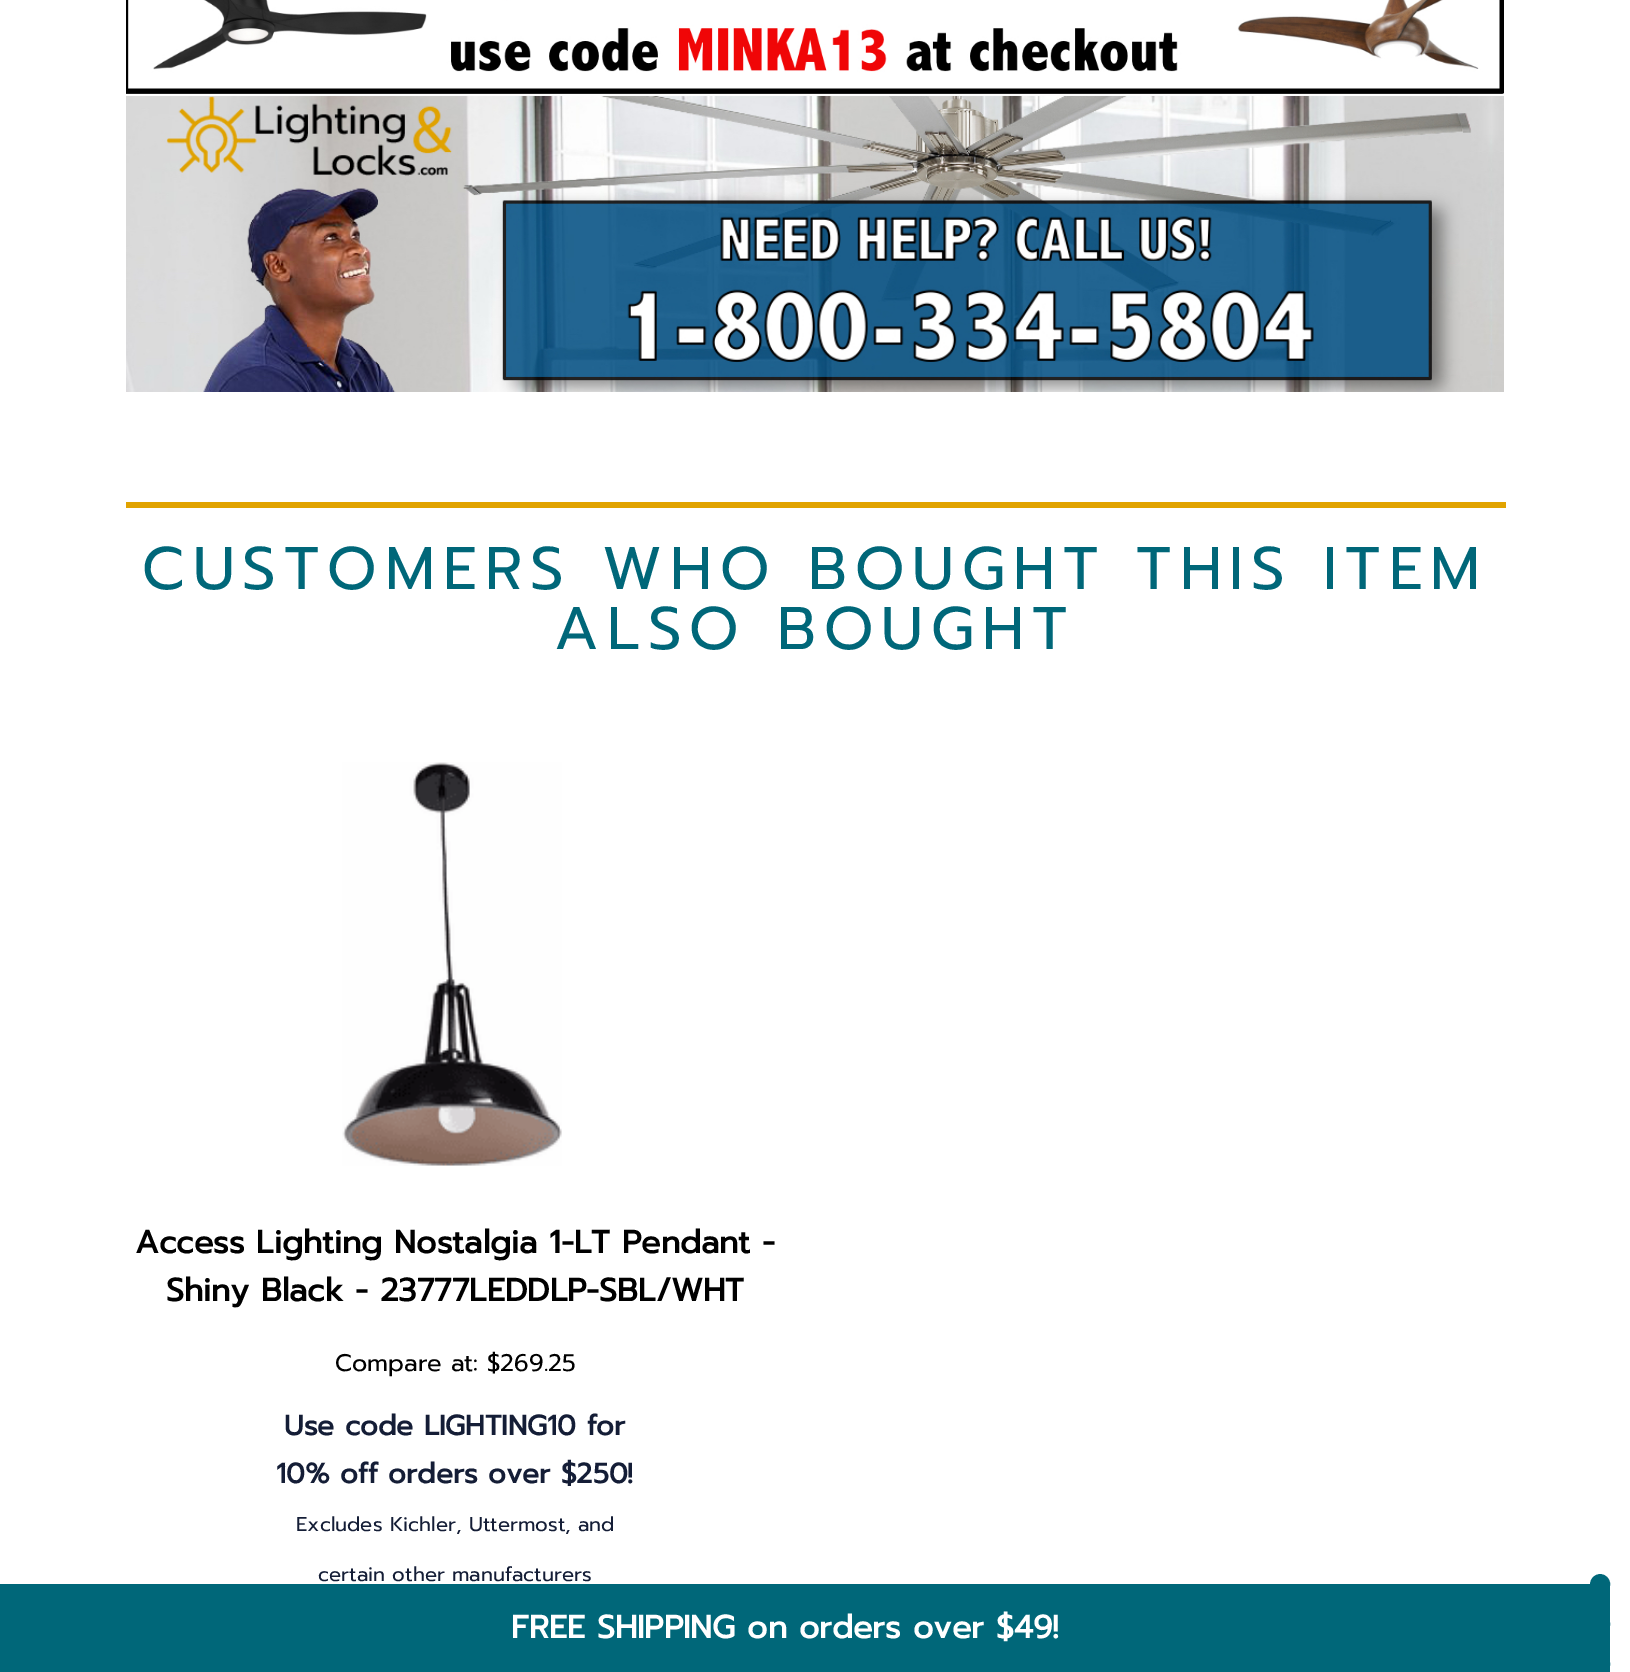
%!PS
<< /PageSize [1630 1672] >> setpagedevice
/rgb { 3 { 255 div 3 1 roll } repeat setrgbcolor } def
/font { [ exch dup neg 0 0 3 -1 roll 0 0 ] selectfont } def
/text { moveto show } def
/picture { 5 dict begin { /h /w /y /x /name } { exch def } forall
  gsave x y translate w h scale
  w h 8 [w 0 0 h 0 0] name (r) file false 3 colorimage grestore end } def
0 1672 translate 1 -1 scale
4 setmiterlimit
255 255 255 rgb
0 0 1630 1672 rectfill
(img_01.rgb) 126 0 1378 94 picture
(img_02.rgb) 126 96 1378 296 picture
225 163 0 rgb
126 502 1380 6 rectfill
(img_03.rgb) 342 762 220 404 picture
0 103 121 rgb
0 1584 1610 88 rectfill
20 setlinewidth
1 setlinecap
[0 40] 0 setdash
1600 1584 moveto 0 88 rlineto stroke
/Prompt-Regular 60 font
142 589 moveto 8 0 (CUSTOMERS WHO BOUGHT THIS ITEM) ashow
554 649 moveto 8 0 (ALSO BOUGHT) ashow
/Prompt-Bold 32 font
0 0 0 rgb
(Access Lighting Nostalgia 1-LT Pendant -) 135 1253 text
(Shiny Black - 23777LEDDLP-SBL/WHT) 166 1301 text
/Prompt-Regular 24 font
(Compare at: $269.25) 335 1371 text
/Prompt-Bold 28 font
20 29 54 rgb
(Use code LIGHTING10 for) 284 1435 text
(10% off orders over $250!) 276 1483 text
/Prompt-Regular 20 font
(Excludes Kichler, Uttermost, and) 296 1531 text
(certain other manufacturers) 318 1581 text
/Prompt-Bold 32 font
255 255 255 rgb
(FREE SHIPPING on orders over $49!) 511 1638 text
showpage
